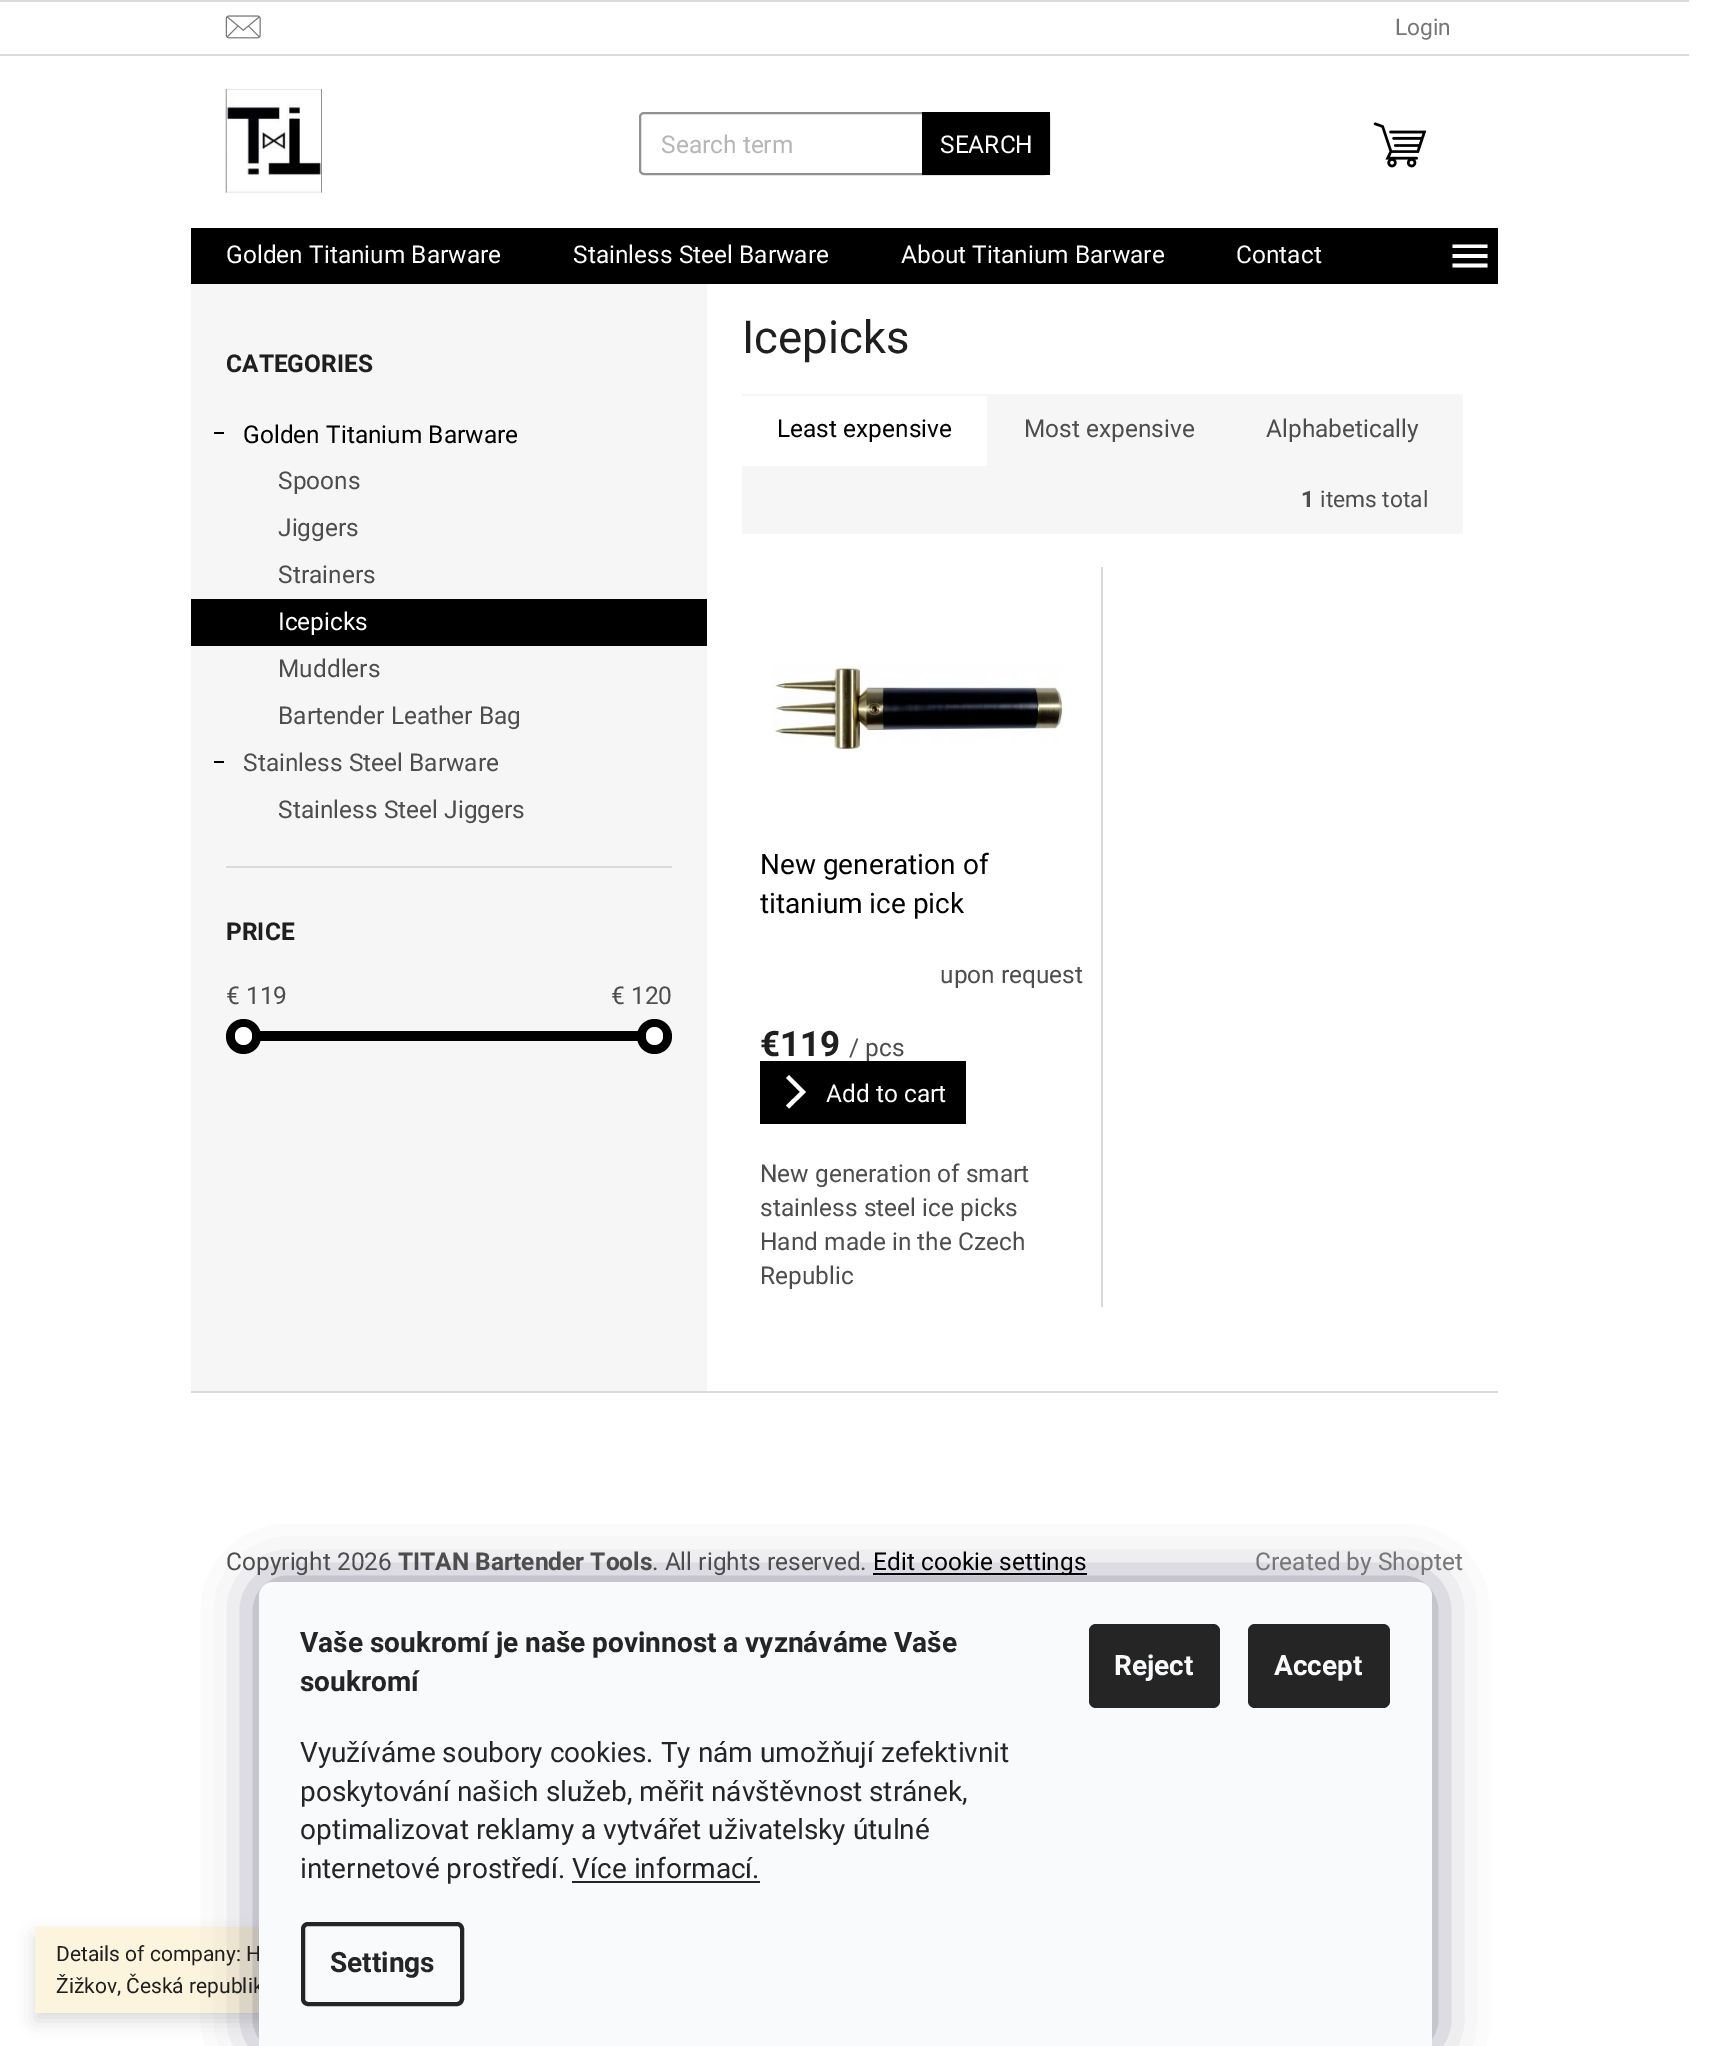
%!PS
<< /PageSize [1714 2046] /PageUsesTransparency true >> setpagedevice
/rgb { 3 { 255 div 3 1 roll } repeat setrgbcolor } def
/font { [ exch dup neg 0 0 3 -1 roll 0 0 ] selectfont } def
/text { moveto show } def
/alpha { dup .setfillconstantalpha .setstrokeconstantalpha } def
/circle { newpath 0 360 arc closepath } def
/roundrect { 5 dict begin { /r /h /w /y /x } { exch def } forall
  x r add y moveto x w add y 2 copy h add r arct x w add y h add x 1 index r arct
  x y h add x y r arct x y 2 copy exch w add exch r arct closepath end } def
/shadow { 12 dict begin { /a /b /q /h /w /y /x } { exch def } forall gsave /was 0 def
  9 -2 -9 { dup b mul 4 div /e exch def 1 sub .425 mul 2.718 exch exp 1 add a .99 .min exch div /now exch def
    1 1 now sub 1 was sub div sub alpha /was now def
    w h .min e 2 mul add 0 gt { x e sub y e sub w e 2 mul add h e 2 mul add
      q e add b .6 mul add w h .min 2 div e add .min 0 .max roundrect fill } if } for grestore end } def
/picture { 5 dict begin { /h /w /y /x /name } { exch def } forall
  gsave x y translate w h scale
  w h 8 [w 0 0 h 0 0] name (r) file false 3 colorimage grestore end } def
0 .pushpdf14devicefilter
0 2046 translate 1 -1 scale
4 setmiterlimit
255 255 255 rgb
0 0 1714 2046 rectfill
218 218 218 rgb
0 0 1689 2 rectfill
0 54 1689 2 rectfill
(img_01.rgb) 225 15 36 24 picture
(img_02.rgb) 225 89 97 104 picture
145 145 145 rgb
2 setlinewidth
640 113 409 61 4 roundrect stroke
0 0 0 rgb
922 112 128 63 rectfill
(img_03.rgb) 1373 122 54 46 picture
191 228 1307 56 rectfill
255 255 255 rgb
1452.5 267.5 moveto 35 0 rlineto 0 -4 rlineto -35 0 rlineto closepath 1452.5 258 moveto 35 0 rlineto 0 -4 rlineto -35 0 rlineto closepath 1452.5 244.5 moveto 0 3.5 rlineto 35 0 rlineto 0 -3.5 rlineto closepath fill
246 246 246 rgb
191 284 516 1107 rectfill
218 218 218 rgb
226 866 446 2 rectfill
0 0 0 rgb
214 432 10 2 rectfill
191 599 516 47 rectfill
214 761 10 2 rectfill
218 218 218 rgb
226 1031 446 10 rectfill
0 0 0 rgb
260 1031 378 10 rectfill
243.5 1036.5 17.5 circle fill
255 255 255 rgb
235 1027 17 18 8.5 roundrect fill
0 0 0 rgb
654.5 1036.5 17.5 circle fill
255 255 255 rgb
646 1027 17 18 8.5 roundrect fill
246 246 246 rgb
742 394 721 140 rectfill
255 255 255 rgb
742 396 245 70 rectfill
218 218 218 rgb
1101 567 2 740 rectfill
(img_04.rgb) 773 665 291 86 picture
0 0 0 rgb
760 1061 206 63 rectfill
255 255 255 rgb
789 1108.5 moveto -3 -3 rlineto 14 -13.5 rlineto -14 -14 rlineto 3 -3 rlineto 17 17 rlineto closepath fill
218 218 218 rgb
191 1391 1307 2 rectfill
0 0 0 rgb
873 1573 214 2 rectfill
26 26 26 rgb
35 1936 840 85 0 9 0.16 shadow
253 244 222 rgb
35 1927 224 86 rectfill
27 25 57 rgb
259 1582 1173 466 14 26 0.5 shadow
/Roboto-Regular 22.75 font
118 118 118 rgb
(Login) 1395 35 text
/Roboto-Regular 24.5 font
182 182 182 rgb
(Search term) 661 153 text
255 255 255 rgb
(SEARCH) 940 153 text
(Golden Titanium Barware) 226 263 text
(Stainless Steel Barware) 573 263 text
(About Titanium Barware) 901 263 text
(Contact) 1236 263 text
/Roboto-Bold 24.5 font
31 31 31 rgb
(CATEGORIES) 226 372 text
/Roboto-Regular 24.5 font
0 0 0 rgb
(Golden Titanium Barware) 243 443 text
77 77 77 rgb
(Spoons) 278 489 text
(Jiggers) 278 536 text
(Strainers) 278 583 text
255 255 255 rgb
(Icepicks) 278 630 text
77 77 77 rgb
(Muddlers) 278 677 text
(Bartender Leather Bag) 278 724 text
(Stainless Steel Barware) 243 771 text
(Stainless Steel Jiggers) 278 818 text
/Roboto-Bold 24.5 font
31 31 31 rgb
(PRICE) 226 940 text
/Roboto-Regular 24.5 font
77 77 77 rgb
(€ 119) 226 1004 text
(€ 120) 611 1004 text
/Roboto-Regular 45.5 font
31 31 31 rgb
(Icepicks) 742 353 text
/Roboto-Regular 24.5 font
0 0 0 rgb
(Least expensive) 777 437 text
77 77 77 rgb
(Most expensive) 1024 437 text
(Alphabetically) 1266 437 text
/Roboto-Bold 22.75 font
(1) 1301 507 text
/Roboto-Regular 22.75 font
(items total) 1320 507 text
/Roboto-Regular 28 font
0 0 0 rgb
(New generation of) 760 874 text
(titanium ice pick) 760 913 text
/Roboto-Regular 24.5 font
77 77 77 rgb
(upon request) 940 983 text
/Roboto-Bold 35 font
31 31 31 rgb
(€119) 760 1056 text
/Roboto-Regular 24.5 font
77 77 77 rgb
(/ pcs) 849 1056 text
255 255 255 rgb
(Add to cart) 826 1102 text
77 77 77 rgb
(New generation of smart) 760 1182 text
(stainless steel ice picks) 760 1216 text
(Hand made in the Czech) 760 1250 text
(Republic) 760 1284 text
(Copyright 2026) 226 1570 text
/Roboto-Bold 24.5 font
(TITAN Bartender Tools) 398 1570 text
/Roboto-Regular 24.5 font
(. All rights reserved.) 652 1570 text
0 0 0 rgb
(Edit cookie settings) 873 1570 text
118 118 118 rgb
(Created by Shoptet) 1255 1570 text
/Roboto-Regular 21 font
31 31 31 rgb
(Details of company: H) 56 1961 text
(Žižkov, Česká republik) 56 1993 text
248 250 251 rgb
273 1582 moveto 1145 0 rlineto 7.5 0 14 6.5 14 14 rcurveto 0 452 rlineto -1173 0 rlineto 0 -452 rlineto 0 -7.5 6.5 -14 14 -14 rcurveto closepath fill
/Roboto-Bold 28 font
37 37 37 rgb
(Vaše soukromí je naše povinnost a vyznáváme Vaše) 300 1652 text
(soukromí) 300 1691 text
/Roboto-Regular 28 font
(Využíváme soubory cookies. Ty nám umožňují zefektivnit) 300 1762 text
(poskytování našich služeb, měřit návštěvnost stránek,) 300 1801 text
(optimalizovat reklamy a vytvářet uživatelsky útulné) 300 1839 text
(internetové prostředí. Více informací.) 300 1878 text
572 1881 188 2 rectfill
4 setlinewidth
303 1924 159 80 5 roundrect stroke
/Roboto-Bold 28 font
(Settings) 330 1972 text
1089 1624 131 84 7 roundrect fill
248 250 251 rgb
(Reject) 1114 1675 text
37 37 37 rgb
1248 1624 142 84 7 roundrect fill
248 250 251 rgb
(Accept) 1274 1675 text
.poppdf14devicefilter showpage
